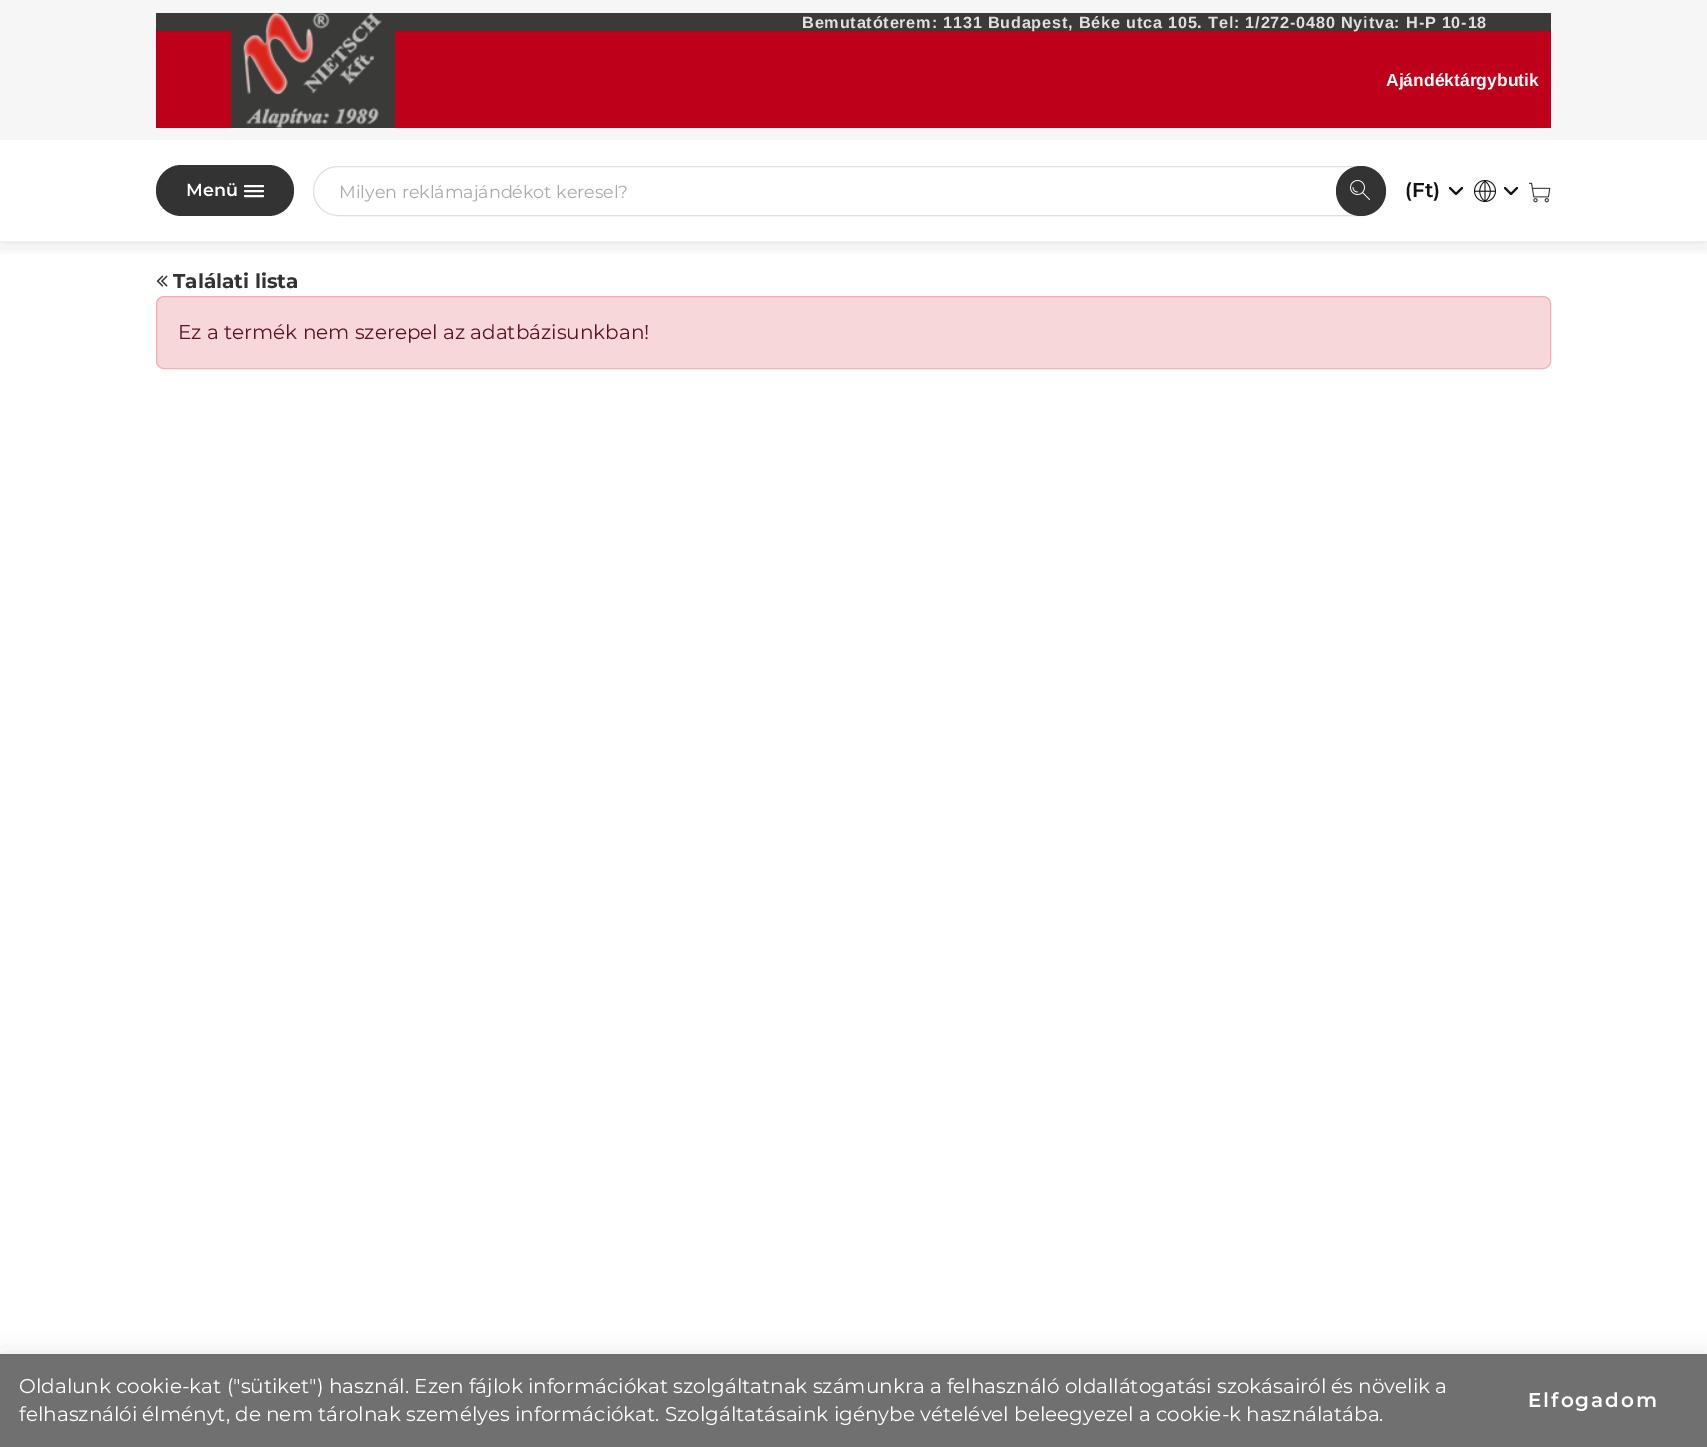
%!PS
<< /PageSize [1707 1447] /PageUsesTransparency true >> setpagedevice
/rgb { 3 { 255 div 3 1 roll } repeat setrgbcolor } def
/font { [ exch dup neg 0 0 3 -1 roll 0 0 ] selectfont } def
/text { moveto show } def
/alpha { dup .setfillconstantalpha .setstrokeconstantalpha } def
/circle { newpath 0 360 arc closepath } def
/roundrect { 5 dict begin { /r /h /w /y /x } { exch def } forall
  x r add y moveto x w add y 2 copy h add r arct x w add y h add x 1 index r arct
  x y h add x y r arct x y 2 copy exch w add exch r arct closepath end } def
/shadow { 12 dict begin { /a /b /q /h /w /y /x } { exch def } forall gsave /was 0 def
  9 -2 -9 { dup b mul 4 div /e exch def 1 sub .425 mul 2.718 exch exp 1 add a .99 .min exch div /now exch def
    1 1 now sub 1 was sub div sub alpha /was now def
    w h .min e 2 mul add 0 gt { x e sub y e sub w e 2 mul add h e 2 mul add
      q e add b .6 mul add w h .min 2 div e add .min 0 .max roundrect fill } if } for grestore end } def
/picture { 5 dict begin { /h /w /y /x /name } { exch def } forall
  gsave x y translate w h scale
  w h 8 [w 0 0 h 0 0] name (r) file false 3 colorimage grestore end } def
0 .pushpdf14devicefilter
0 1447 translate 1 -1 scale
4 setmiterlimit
255 255 255 rgb
0 0 1707 1447 rectfill
gsave
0 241 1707 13 rectclip
0 0 0 rgb
0 0 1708 241 0 12.5 0.13 shadow
grestore
246 246 246 rgb
0 0 1707 140 rectfill
58 59 57 rgb
156 13 75 18 rectfill
231 13 164 115 rectfill
(img_01.rgb) 243 12 139 116 picture
395 13 1156 18 rectfill
190 0 26 rgb
156 31 75 97 rectfill
395 31 1156 97 rectfill
51 51 51 rgb
156 165 138 51 25.5 roundrect fill
255 255 255 rgb
2 setlinewidth
1 setlinecap
245 186 moveto 18 0 rlineto 245 191 moveto 18 0 rlineto 245 196 moveto 18 0 rlineto stroke
223 223 223 rgb
1 setlinewidth
0 setlinecap
313.5 166.5 1072 49 24.5 roundrect stroke
51 51 51 rgb
1361 191 25 circle fill
(img_02.rgb) 1350 180 20 20 picture
17 17 17 rgb
2 setlinewidth
1 setlinecap
1 setlinejoin
1450 188 moveto 6 6 rlineto 6 -6 rlineto stroke
(img_03.rgb) 1474 180 22 22 picture
1505 188 moveto 6 6 rlineto 6 -6 rlineto stroke
(img_04.rgb) 1529 182 22 21 picture
(img_05.rgb) 156 275 12 12 picture
248 215 218 rgb
156.5 296.5 1394 72 7.5 roundrect gsave fill grestore
241 174 181 rgb
1 setlinewidth
0 setlinecap
0 setlinejoin
stroke
77 77 77 rgb
0 1354 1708 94 0 12.5 0.13 shadow
112 112 112 rgb
0 1354 1707 93 rectfill
/LiberationSans-Bold 16.25 font
224 224 224 rgb
802 28 moveto 0.8 0 (Bemutatóterem: 1131 Budapest, Béke utca 105. Tel: 1/272-0480 Nyitva: H-P 10-18) ashow
/LiberationSans-Bold 17.5 font
255 255 255 rgb
(Ajándéktárgybutik) 1386 86 text
/Montserrat-SemiBold 17.5 font
(Menü) 186 196 text
/Montserrat-Regular 17.5 font
170 170 170 rgb
(Milyen reklámajándékot keresel?) 339 198 text
/Montserrat-SemiBold 20 font
17 17 17 rgb
(\(Ft\)) 1405 197 text
/Montserrat-Bold 20 font
51 51 51 rgb
(Találati lista) 173 288 text
/Montserrat-Regular 20 font
88 21 28 rgb
(Ez a termék nem szerepel az adatbázisunkban!) 178 339 text
255 255 255 rgb
(Oldalunk cookie-kat \("sütiket"\) használ. Ezen fájlok információkat szolgáltatnak számunkra a felhasználó oldallátogatási szokásairól és növelik a) 19 1393 text
(felhasználói élményt, de nem tárolnak személyes információkat. Szolgáltatásaink igénybe vételével beleegyezel a cookie-k használatába.) 19 1421 text
/Montserrat-SemiBold 20 font
1528 1407 moveto 2 0 (Elfogadom) ashow
.poppdf14devicefilter showpage
